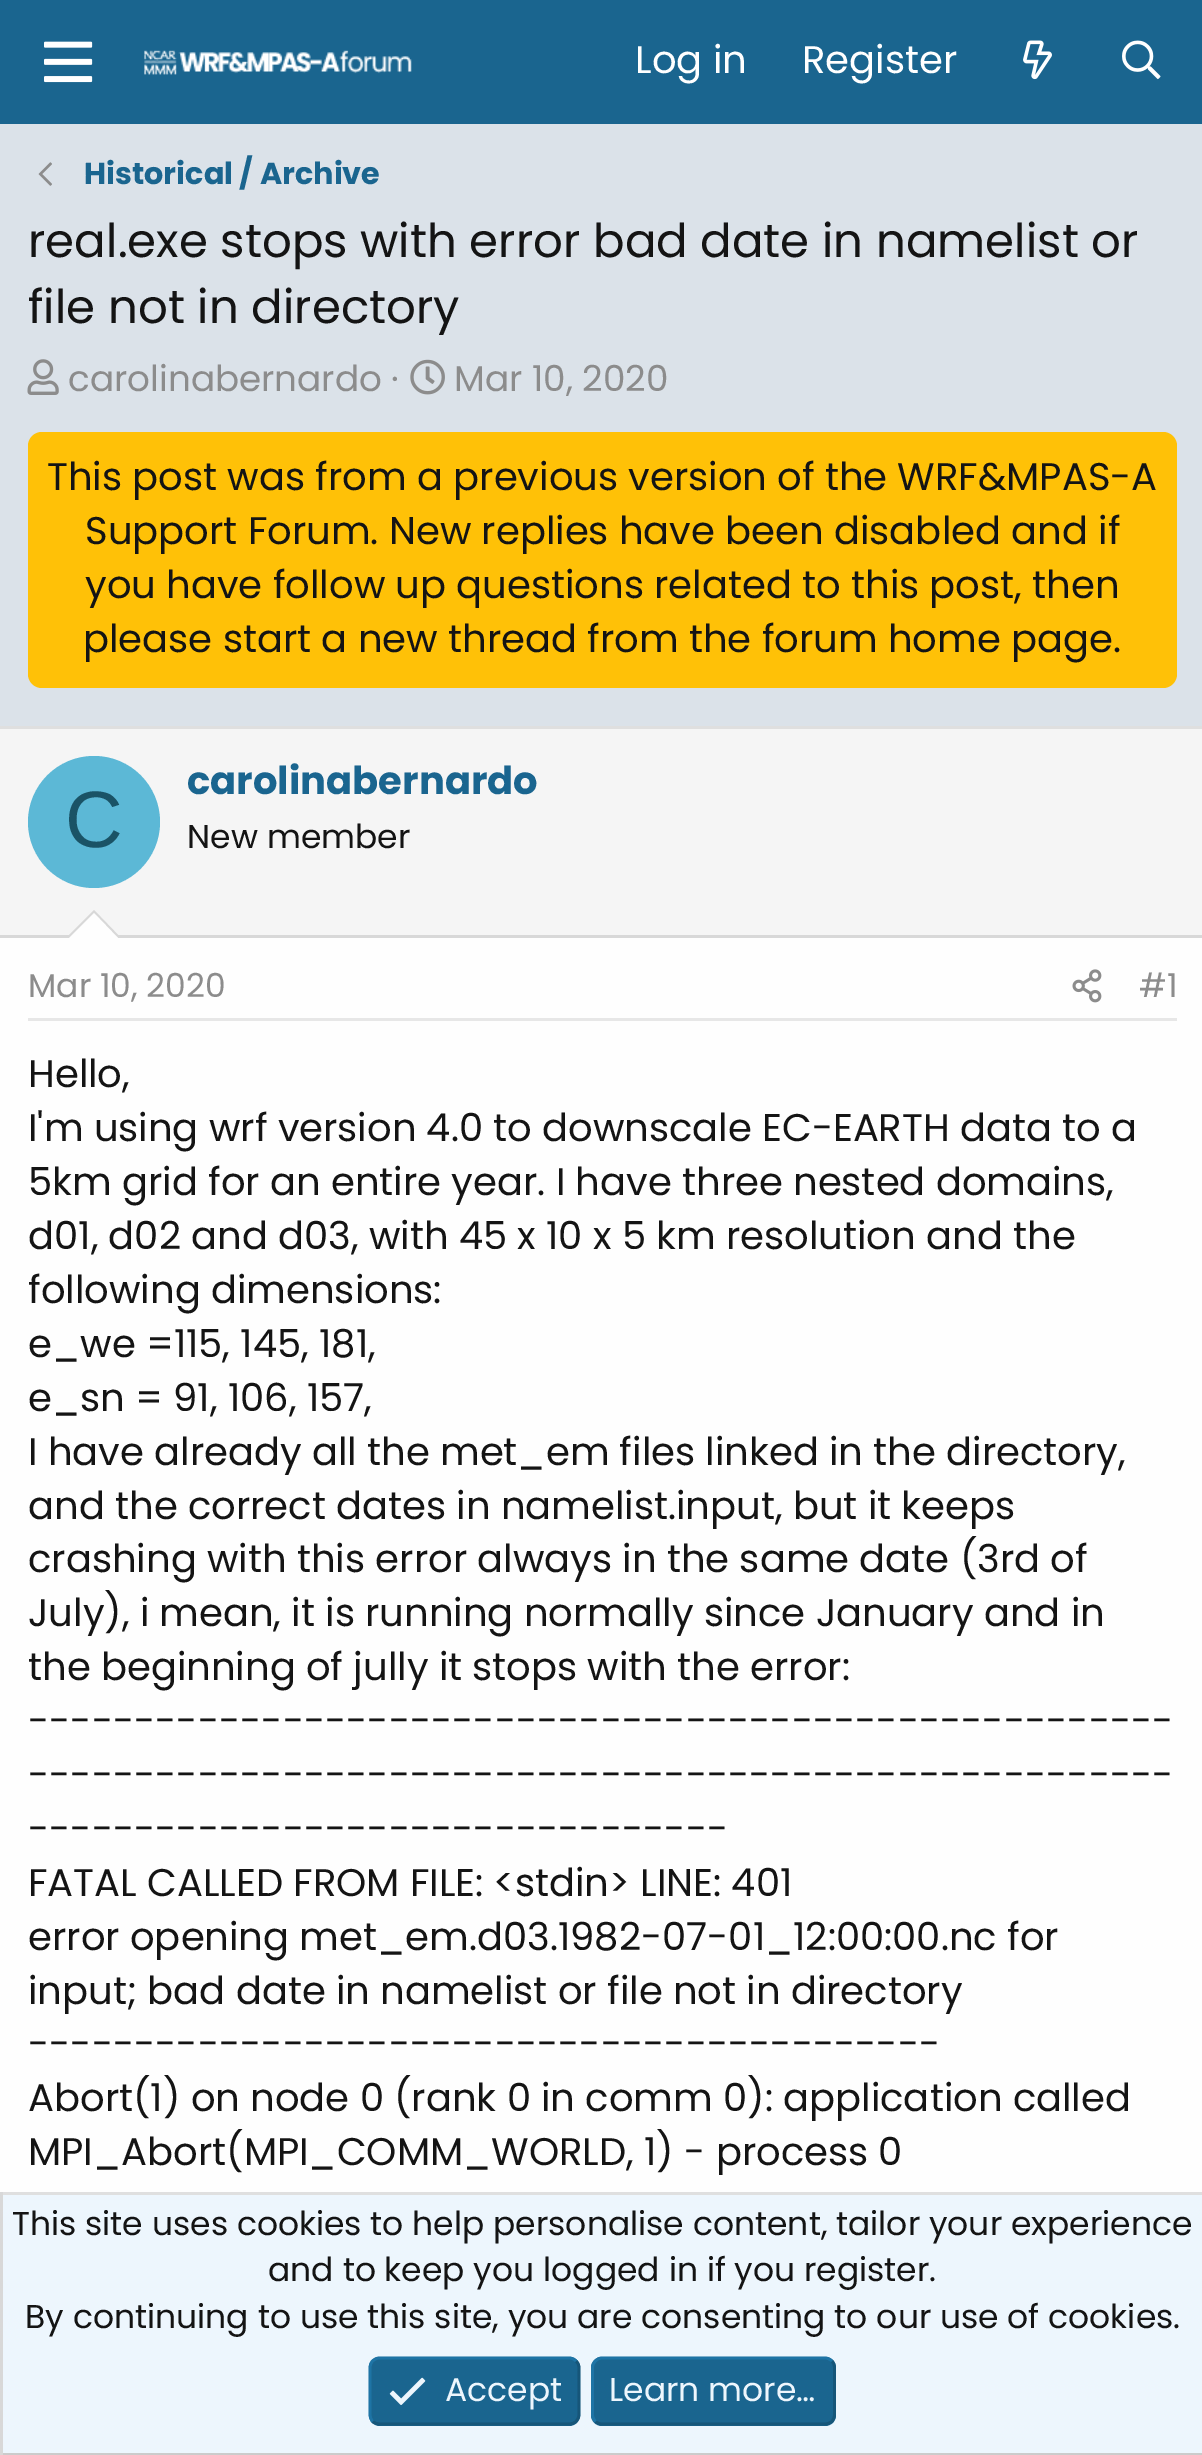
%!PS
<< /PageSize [1202 2455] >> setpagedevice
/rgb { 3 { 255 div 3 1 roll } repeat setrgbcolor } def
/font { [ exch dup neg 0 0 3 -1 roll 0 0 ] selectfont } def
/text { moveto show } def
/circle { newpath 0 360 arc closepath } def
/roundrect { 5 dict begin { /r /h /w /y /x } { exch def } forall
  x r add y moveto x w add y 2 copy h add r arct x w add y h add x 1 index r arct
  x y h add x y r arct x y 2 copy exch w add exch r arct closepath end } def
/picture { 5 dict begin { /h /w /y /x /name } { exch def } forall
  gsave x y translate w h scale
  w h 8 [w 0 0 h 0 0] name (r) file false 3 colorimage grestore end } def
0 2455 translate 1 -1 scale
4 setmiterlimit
219 226 233 rgb
0 0 1202 2455 rectfill
26 101 143 rgb
0 0 1202 124 rectfill
(img_01.rgb) 44 41 49 42 picture
(img_02.rgb) 144 50 268 25 picture
(img_03.rgb) 1023 40 29 40 picture
(img_04.rgb) 1122 40 39 40 picture
(img_05.rgb) 38 162 14 24 picture
(img_06.rgb) 27 359 32 36 picture
(img_07.rgb) 410 359 35 36 picture
255 193 7 rgb
28 432 1149 256 14 roundrect fill
254 254 254 rgb
0 938 1202 1254 rectfill
223 223 223 rgb
0 726 1202 3 rectfill
245 245 245 rgb
0 729 1202 206 rectfill
216 216 216 rgb
0 935 1202 3 rectfill
92 184 214 rgb
94 822 66 circle fill
216 216 216 rgb
121 938 moveto -55 0 rlineto 28 -28 rlineto closepath fill
254 254 254 rgb
118 938 moveto -49 0 rlineto 25 -25 rlineto closepath fill
231 231 231 rgb
28 1018 1149 3 rectfill
(img_08.rgb) 1072 969 30 34 picture
237 246 253 rgb
3 2195 1199 258 rectfill
223 223 223 rgb
0 2192 1202 3 rectfill
203 203 203 rgb
0 2453 1202 2 rectfill
216 216 216 rgb
0 2192 3 263 rectfill
26 101 143 rgb
369 2357 211 69 11 roundrect fill
22 86 121 rgb
2.8 setlinewidth
576 2361 moveto 2 1.5 3 4 3 7 rcurveto 0 46.5 rlineto 0 2.5 -1 5 -3 7 rcurveto -1.5 1.5 -4 2.5 -7 2.5 rcurveto -189.5 0 rlineto -2.5 0 -5 -1 -7 -2.5 rcurveto stroke
30 116 165 rgb
372.5 2421.5 moveto -1.5 -2 -2.5 -4.5 -2.5 -7 rcurveto 0 -46.5 rlineto 0 -3 1 -5.5 2.5 -7 rcurveto 2 -2 4.5 -3 7 -3 rcurveto 189.5 0 rlineto 3 0 5.5 1 7 3 rcurveto stroke
(img_09.rgb) 389 2377 37 28 picture
26 101 143 rgb
591 2357 245 69 11 roundrect fill
22 86 121 rgb
832 2361 moveto 1.5 1.5 2.5 4 2.5 7 rcurveto 0 46.5 rlineto 0 2.5 -1 5 -2.5 7 rcurveto -2 1.5 -4.5 2.5 -7 2.5 rcurveto -223 0 rlineto -2.5 0 -5 -1 -6.5 -2.5 rcurveto stroke
30 116 165 rgb
595.5 2421.5 moveto -2 -2 -3 -4.5 -3 -7 rcurveto 0 -46.5 rlineto 0 -3 1 -5.5 3 -7 rcurveto 1.5 -2 4 -3 6.5 -3 rcurveto 223 0 rlineto 2.5 0 5 1 7 3 rcurveto stroke
/Poppins-Regular 38.5 font
255 255 255 rgb
(Log in) 635 73 text
(Register) 802 73 text
/Poppins-Bold 30.25 font
26 101 143 rgb
(Historical / Archive) 84 184 text
/Poppins-Regular 46.75 font
20 20 20 rgb
(real.exe stops with error bad date in namelist or) 28 257 text
(file not in directory) 28 323 text
/Poppins-Regular 35.75 font
140 140 140 rgb
(carolinabernardo ·) 68 391 text
(Mar 10, 2020) 454 391 text
/Poppins-Regular 38.5 font
20 20 20 rgb
(This post was from a previous version of the WRF&MPAS-A) 47 490 text
(Support Forum. New replies have been disabled and if) 85 544 text
(you have follow up questions related to this post, then) 85 598 text
(please start a new thread from the forum home page.) 83 652 text
/LiberationSans-Regular 80 font
26 83 102 rgb
(C) 65 847 text
/Poppins-Bold 38.5 font
26 101 143 rgb
(carolinabernardo) 187 794 text
/Poppins-Regular 33 font
20 20 20 rgb
(New member) 187 848 text
140 140 140 rgb
(Mar 10, 2020) 28 997 text
(#1) 1139 997 text
/Poppins-Regular 38.5 font
20 20 20 rgb
(Hello,) 28 1087 text
(I'm using wrf version 4.0 to downscale EC-EARTH data to a) 28 1141 text
(5km grid for an entire year. I have three nested domains,) 28 1195 text
(d01, d02 and d03, with 45 x 10 x 5 km resolution and the) 28 1249 text
(following dimensions:) 28 1303 text
(e_we =115, 145, 181,) 28 1357 text
(e_sn = 91, 106, 157,) 28 1411 text
(I have already all the met_em files linked in the directory,) 28 1465 text
(and the correct dates in namelist.input, but it keeps) 28 1519 text
(crashing with this error always in the same date \(3rd of) 28 1572 text
(July\), i mean, it is running normally since January and in) 28 1626 text
(the beginning of jully it stops with the error:) 28 1680 text
(------------------------------------------------------) 28 1734 text
(------------------------------------------------------) 28 1788 text
(---------------------------------) 28 1842 text
(FATAL CALLED FROM FILE: <stdin> LINE: 401) 28 1896 text
(error opening met_em.d03.1982-07-01_12:00:00.nc for) 28 1950 text
(input; bad date in namelist or file not in directory) 28 2004 text
(-------------------------------------------) 28 2057 text
(Abort\(1\) on node 0 \(rank 0 in comm 0\): application called) 28 2111 text
(MPI_Abort\(MPI_COMM_WORLD, 1\) - process 0) 28 2165 text
/Poppins-Regular 33 font
(This site uses cookies to help personalise content, tailor your experience) 12 2235 text
(and to keep you logged in if you register.) 268 2281 text
(By continuing to use this site, you are consenting to our use of cookies.) 25 2328 text
237 246 253 rgb
(Accept) 445 2401 text
(Learn more…) 609 2401 text
showpage
